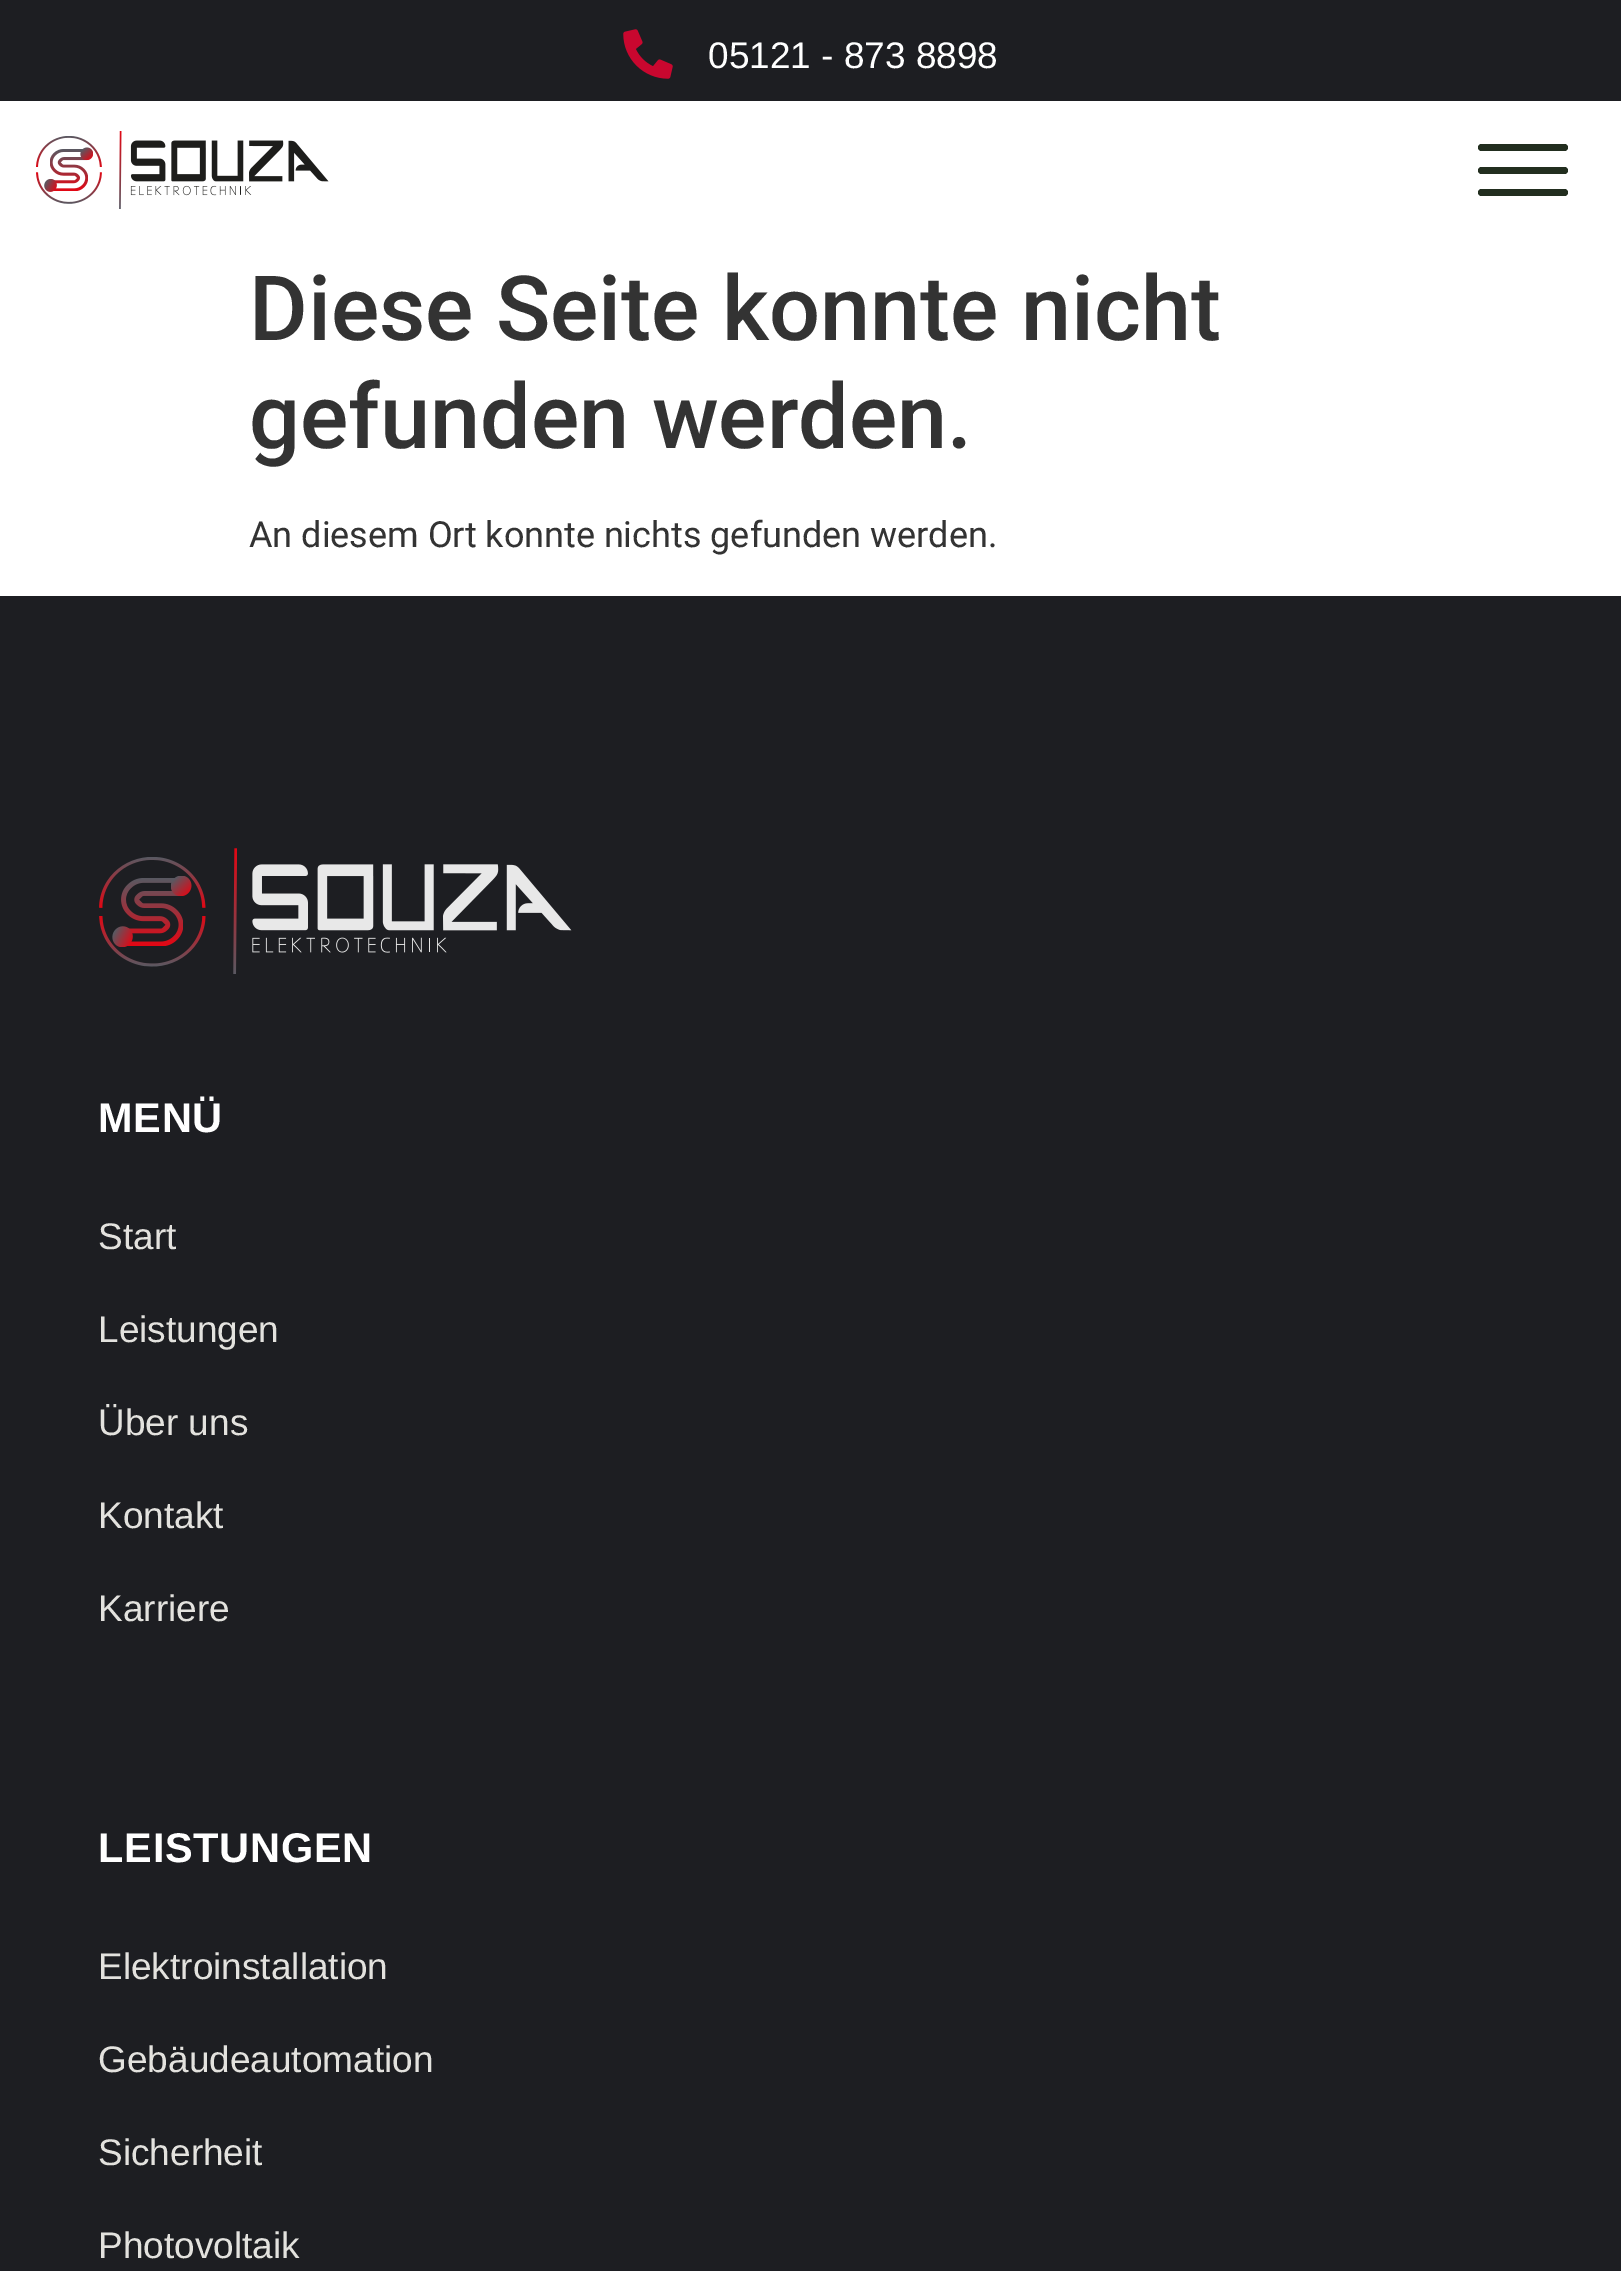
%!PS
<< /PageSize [1621 2271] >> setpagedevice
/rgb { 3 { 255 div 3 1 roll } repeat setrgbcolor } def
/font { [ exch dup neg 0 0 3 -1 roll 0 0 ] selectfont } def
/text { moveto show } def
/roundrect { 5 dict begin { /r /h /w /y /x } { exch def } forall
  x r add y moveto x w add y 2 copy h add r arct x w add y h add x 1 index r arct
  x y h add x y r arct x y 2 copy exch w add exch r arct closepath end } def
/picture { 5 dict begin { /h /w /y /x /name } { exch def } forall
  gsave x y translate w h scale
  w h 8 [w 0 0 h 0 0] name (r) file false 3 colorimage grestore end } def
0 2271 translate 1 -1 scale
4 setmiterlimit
255 255 255 rgb
0 0 1621 2271 rectfill
29 30 34 rgb
0 0 1621 101 rectfill
(img_01.rgb) 623 29 50 50 picture
(img_02.rgb) 36 131 293 78 picture
34 46 31 rgb
1478 144 90 7 3.5 roundrect fill
1478 167 90 7 3.5 roundrect fill
1478 189 90 7 3.5 roundrect fill
29 30 34 rgb
0 596 1621 1675 rectfill
(img_03.rgb) 99 848 473 126 picture
/LiberationSans-Regular 37 font
255 255 255 rgb
(05121 - 873 8898) 708 68 text
/Roboto-Medium 90 font
51 51 51 rgb
(Diese Seite konnte nicht) 249 340 text
(gefunden werden.) 249 448 text
/Roboto-Regular 36 font
(An diesem Ort konnte nichts gefunden werden.) 249 547 text
/LiberationSans-Bold 41.5 font
255 255 255 rgb
98 1132 moveto 0.75 0 (MENÜ) ashow
/LiberationSans-Regular 37 font
227 226 222 rgb
(Start) 98 1249 text
(Leistungen) 98 1342 text
(Über uns) 98 1435 text
(Kontakt) 98 1528 text
(Karriere) 98 1621 text
/LiberationSans-Bold 41.5 font
255 255 255 rgb
98 1862 moveto 0.75 0 (LEISTUNGEN) ashow
/LiberationSans-Regular 37 font
227 226 222 rgb
(Elektroinstallation) 98 1979 text
(Gebäudeautomation) 98 2072 text
(Sicherheit) 98 2165 text
(Photovoltaik) 98 2258 text
showpage
